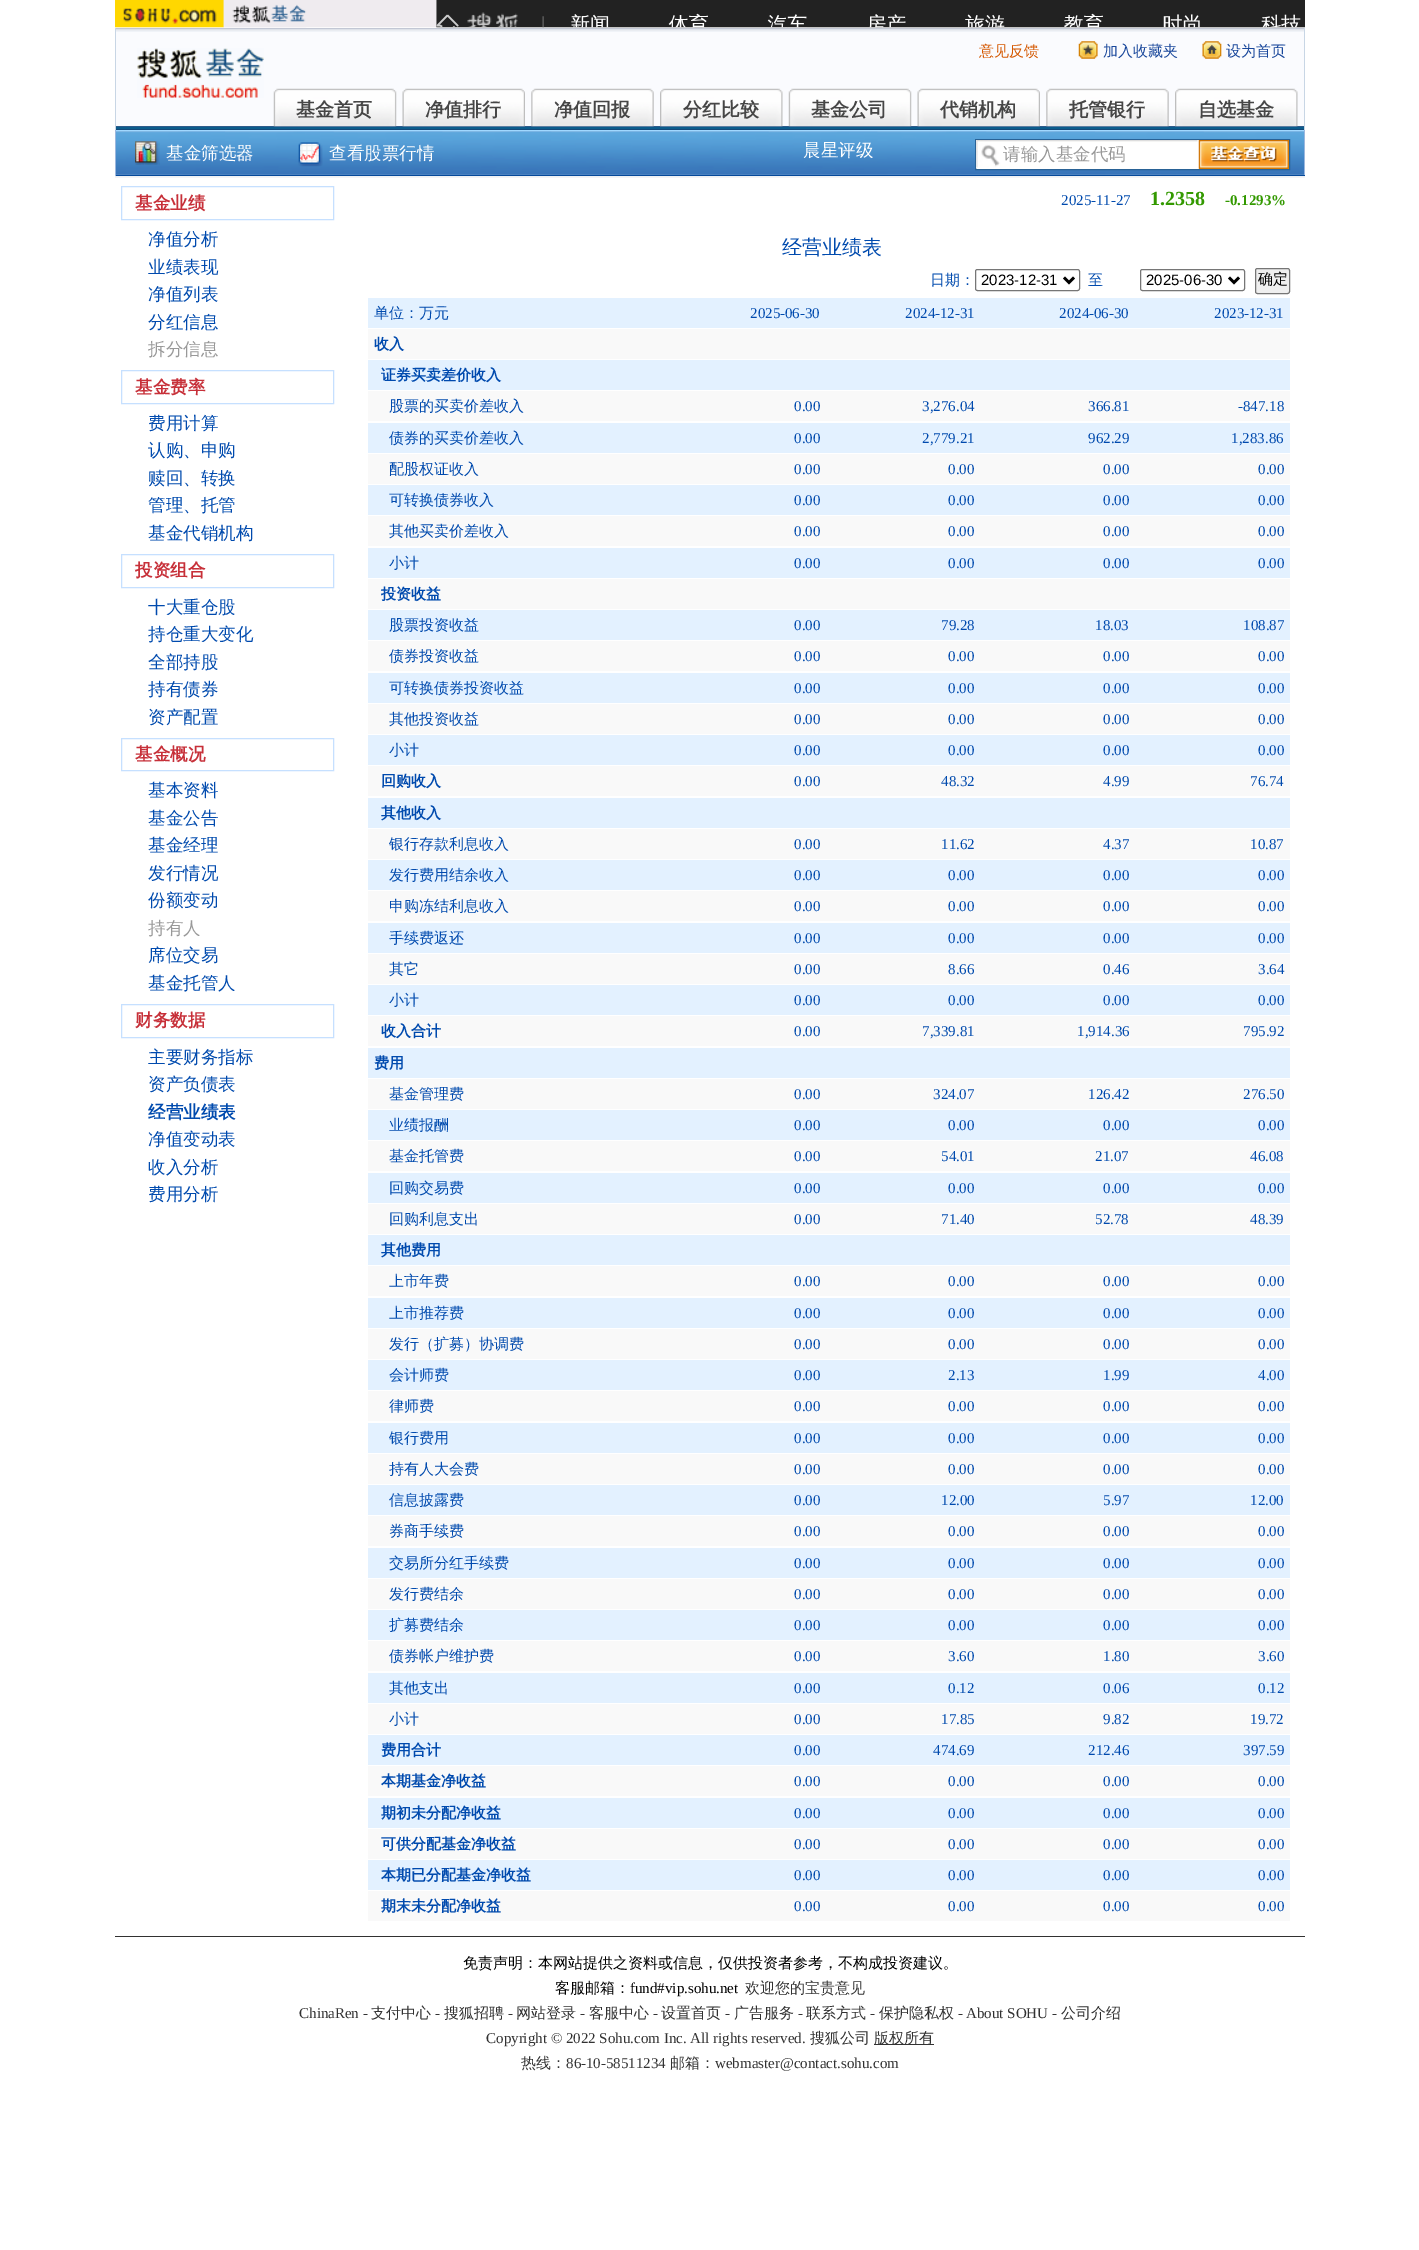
%!PS
<< /PageSize [1419 2250] >> setpagedevice
/rgb { 3 { 255 div 3 1 roll } repeat setrgbcolor } def
/font { [ exch dup neg 0 0 3 -1 roll 0 0 ] selectfont } def
/text { moveto show } def
/roundrect { 5 dict begin { /r /h /w /y /x } { exch def } forall
  x r add y moveto x w add y 2 copy h add r arct x w add y h add x 1 index r arct
  x y h add x y r arct x y 2 copy exch w add exch r arct closepath end } def
/picture { 5 dict begin { /h /w /y /x /name } { exch def } forall
  gsave x y translate w h scale
  w h 8 [w 0 0 h 0 0] name (r) file false 3 colorimage grestore end } def
0 2250 translate 1 -1 scale
4 setmiterlimit
255 255 255 rgb
0 0 1419 2250 rectfill
(img_01.rgb) 115 0 1190 28 picture
250 251 254 rgb
116 32 1188 94 rectfill
(img_02.rgb) 116 29 1188 3 picture
194 199 212 rgb
115 28 1190 1 rectfill
200 214 229 rgb
1304 28 1 102 rectfill
115 28 1 102 rectfill
(img_03.rgb) 137 48 127 50 picture
(img_04.rgb) 1078 41 20 18 picture
(img_05.rgb) 1202 41 20 18 picture
46 91 139 rgb
116 126 1188 1 rectfill
(img_06.rgb) 273 88 124 39 picture
(img_07.rgb) 402 88 123 39 picture
(img_08.rgb) 531 88 123 39 picture
(img_09.rgb) 660 88 123 39 picture
(img_10.rgb) 788 88 124 39 picture
(img_11.rgb) 917 88 123 39 picture
(img_08.rgb) 1046 88 123 39 picture
(img_12.rgb) 1175 88 123 39 picture
11 92 140 rgb
116 127 1188 2 rectfill
18 72 121 rgb
116 129 1188 1 rectfill
189 212 241 rgb
116 131 1188 1 rectfill
(img_13.rgb) 116 131 1188 44 picture
161 216 255 rgb
115 130 1190 1 rectfill
155 183 222 rgb
1304 130 1 46 rectfill
5 73 154 rgb
115 175 1190 1 rectfill
155 183 222 rgb
115 130 1 46 rectfill
(img_14.rgb) 135 141 25 24 picture
(img_15.rgb) 298 142 25 25 picture
255 255 255 rgb
976 140 223 29 rectfill
41 98 150 rgb
975.5 139.5 314 30 rectstroke
(img_16.rgb) 976 140 222 28 picture
255 153 0 rgb
1199 140 90 29 rectfill
(img_17.rgb) 1198 140 91 29 picture
(img_18.rgb) 115 176 1190 2 picture
198 224 255 rgb
121.5 186.5 212 33 rectstroke
121.5 370.5 212 33 rectstroke
121.5 554.5 212 33 rectstroke
121.5 738.5 212 32 rectstroke
121.5 1004.5 212 33 rectstroke
118 118 118 rgb
975.5 269.5 104 21 2 roundrect stroke
0 0 0 rgb
2.5 setlinewidth
1064 277.5 moveto 5 5 rlineto 5 -5 rlineto stroke
118 118 118 rgb
1 setlinewidth
1140.5 269.5 104 21 2 roundrect stroke
0 0 0 rgb
2.5 setlinewidth
1229 277.5 moveto 5 5 rlineto 5 -5 rlineto stroke
239 239 239 rgb
1255.5 268.5 34 25 2 roundrect gsave fill grestore
118 118 118 rgb
1 setlinewidth
stroke
227 241 255 rgb
368 298 922 30 rectfill
249 249 249 rgb
368 329 922 30 rectfill
227 241 255 rgb
368 360 922 30 rectfill
249 249 249 rgb
368 391 922 30 rectfill
227 241 255 rgb
368 423 922 30 rectfill
249 249 249 rgb
368 454 922 30 rectfill
227 241 255 rgb
368 485 922 30 rectfill
249 249 249 rgb
368 516 922 30 rectfill
227 241 255 rgb
368 548 922 30 rectfill
249 249 249 rgb
368 579 922 30 rectfill
227 241 255 rgb
368 610 922 30 rectfill
249 249 249 rgb
368 641 922 30 rectfill
227 241 255 rgb
368 673 922 30 rectfill
249 249 249 rgb
368 704 922 30 rectfill
227 241 255 rgb
368 735 922 30 rectfill
249 249 249 rgb
368 766 922 30 rectfill
227 241 255 rgb
368 798 922 30 rectfill
249 249 249 rgb
368 829 922 30 rectfill
227 241 255 rgb
368 860 922 30 rectfill
249 249 249 rgb
368 891 922 30 rectfill
227 241 255 rgb
368 923 922 30 rectfill
249 249 249 rgb
368 954 922 30 rectfill
227 241 255 rgb
368 985 922 30 rectfill
249 249 249 rgb
368 1016 922 30 rectfill
227 241 255 rgb
368 1048 922 30 rectfill
249 249 249 rgb
368 1079 922 30 rectfill
227 241 255 rgb
368 1110 922 30 rectfill
249 249 249 rgb
368 1141 922 30 rectfill
227 241 255 rgb
368 1173 922 30 rectfill
249 249 249 rgb
368 1204 922 30 rectfill
227 241 255 rgb
368 1235 922 30 rectfill
249 249 249 rgb
368 1266 922 30 rectfill
227 241 255 rgb
368 1298 922 30 rectfill
249 249 249 rgb
368 1329 922 30 rectfill
227 241 255 rgb
368 1360 922 30 rectfill
249 249 249 rgb
368 1391 922 30 rectfill
227 241 255 rgb
368 1423 922 30 rectfill
249 249 249 rgb
368 1454 922 30 rectfill
227 241 255 rgb
368 1485 922 30 rectfill
249 249 249 rgb
368 1516 922 30 rectfill
227 241 255 rgb
368 1548 922 30 rectfill
249 249 249 rgb
368 1579 922 30 rectfill
227 241 255 rgb
368 1610 922 30 rectfill
249 249 249 rgb
368 1641 922 30 rectfill
227 241 255 rgb
368 1673 922 30 rectfill
249 249 249 rgb
368 1704 922 30 rectfill
227 241 255 rgb
368 1735 922 30 rectfill
249 249 249 rgb
368 1766 922 30 rectfill
227 241 255 rgb
368 1798 922 30 rectfill
249 249 249 rgb
368 1829 922 30 rectfill
227 241 255 rgb
368 1860 922 30 rectfill
249 249 249 rgb
368 1891 922 30 rectfill
50 50 50 rgb
115 1936 1190 1 rectfill
874 2044 60 1 rectfill
/WenQuanYiZenHei-Medium 15 font
213 88 0 rgb
(意见反馈) 979 56 text
24 71 155 rgb
(加入收藏夹) 1103 56 text
(设为首页) 1226 56 text
/WenQuanYiZenHei-Bold 19 font
70 70 70 rgb
(基金首页) 296 116 text
(净值排行) 425 116 text
(净值回报) 554 116 text
(分红比较) 683 116 text
(基金公司) 811 116 text
(代销机构) 940 116 text
(托管银行) 1069 116 text
(自选基金) 1198 116 text
/WenQuanYiZenHei-Medium 17.5 font
255 255 255 rgb
(基金筛选器) 166 159 text
(查看股票行情) 329 159 text
(晨星评级) 803 156 text
153 153 153 rgb
(请输入基金代码) 1003 160 text
/WenQuanYiZenHei-Bold 17.5 font
199 48 57 rgb
(基金业绩) 135 209 text
/WenQuanYiZenHei-Medium 17.5 font
0 74 174 rgb
(净值分析) 148 245 text
(业绩表现) 148 273 text
(净值列表) 148 300 text
(分红信息) 148 328 text
153 153 153 rgb
(拆分信息) 148 355 text
/WenQuanYiZenHei-Bold 17.5 font
199 48 57 rgb
(基金费率) 135 393 text
/WenQuanYiZenHei-Medium 17.5 font
0 74 174 rgb
(费用计算) 148 429 text
(认购、申购) 148 456 text
(赎回、转换) 148 484 text
(管理、托管) 148 511 text
(基金代销机构) 148 539 text
/WenQuanYiZenHei-Bold 17.5 font
199 48 57 rgb
(投资组合) 135 576 text
/WenQuanYiZenHei-Medium 17.5 font
0 74 174 rgb
(十大重仓股) 148 613 text
(持仓重大变化) 148 640 text
(全部持股) 148 668 text
(持有债券) 148 695 text
(资产配置) 148 723 text
/WenQuanYiZenHei-Bold 17.5 font
199 48 57 rgb
(基金概况) 135 760 text
/WenQuanYiZenHei-Medium 17.5 font
0 74 174 rgb
(基本资料) 148 796 text
(基金公告) 148 824 text
(基金经理) 148 851 text
(发行情况) 148 879 text
(份额变动) 148 906 text
153 153 153 rgb
(持有人) 148 934 text
0 74 174 rgb
(席位交易) 148 961 text
(基金托管人) 148 989 text
/WenQuanYiZenHei-Bold 17.5 font
199 48 57 rgb
(财务数据) 135 1026 text
/WenQuanYiZenHei-Medium 17.5 font
0 74 174 rgb
(主要财务指标) 148 1063 text
(资产负债表) 148 1090 text
/WenQuanYiZenHei-Bold 17.5 font
(经营业绩表) 148 1118 text
/WenQuanYiZenHei-Medium 17.5 font
(净值变动表) 148 1145 text
(收入分析) 148 1173 text
(费用分析) 148 1200 text
/LiberationSerif-Regular 15 font
(2025-11-27) 1061 205 text
/LiberationSerif-Bold 20 font
51 153 0 rgb
(1.2358) 1150 205 text
/LiberationSerif-Bold 15 font
(-0.1293%) 1225 205 text
/WenQuanYiZenHei-Medium 20 font
0 74 174 rgb
(经营业绩表) 782 254 text
/WenQuanYiZenHei-Medium 15 font
(日期：) 930 285 text
/LiberationSans-Regular 15 font
0 0 0 rgb
(2023-12-31) 981 285 text
/WenQuanYiZenHei-Medium 15 font
0 74 174 rgb
(至) 1088 285 text
/LiberationSans-Regular 15 font
0 0 0 rgb
(2025-06-30) 1146 285 text
/WenQuanYiZenHei-Medium 15 font
(确定) 1258 284 text
0 74 174 rgb
(单位：万元) 374 318 text
/LiberationSerif-Regular 15 font
(2025-06-30) 750 318 text
(2024-12-31) 905 318 text
(2024-06-30) 1059 318 text
(2023-12-31) 1214 318 text
/WenQuanYiZenHei-Bold 15 font
(收入) 374 349 text
(证券买卖差价收入) 381 380 text
/WenQuanYiZenHei-Medium 15 font
(股票的买卖价差收入) 389 411 text
/LiberationSerif-Regular 15 font
(0.00) 794 411 text
(3,276.04) 922 411 text
(366.81) 1088 411 text
(-847.18) 1238 411 text
/WenQuanYiZenHei-Medium 15 font
(债券的买卖价差收入) 389 443 text
/LiberationSerif-Regular 15 font
(0.00) 794 443 text
(2,779.21) 922 443 text
(962.29) 1088 443 text
(1,283.86) 1231 443 text
/WenQuanYiZenHei-Medium 15 font
(配股权证收入) 389 474 text
/LiberationSerif-Regular 15 font
(0.00) 794 474 text
(0.00) 948 474 text
(0.00) 1103 474 text
(0.00) 1258 474 text
/WenQuanYiZenHei-Medium 15 font
(可转换债券收入) 389 505 text
/LiberationSerif-Regular 15 font
(0.00) 794 505 text
(0.00) 948 505 text
(0.00) 1103 505 text
(0.00) 1258 505 text
/WenQuanYiZenHei-Medium 15 font
(其他买卖价差收入) 389 536 text
/LiberationSerif-Regular 15 font
(0.00) 794 536 text
(0.00) 948 536 text
(0.00) 1103 536 text
(0.00) 1258 536 text
/WenQuanYiZenHei-Medium 15 font
(小计) 389 568 text
/LiberationSerif-Regular 15 font
(0.00) 794 568 text
(0.00) 948 568 text
(0.00) 1103 568 text
(0.00) 1258 568 text
/WenQuanYiZenHei-Bold 15 font
(投资收益) 381 599 text
/WenQuanYiZenHei-Medium 15 font
(股票投资收益) 389 630 text
/LiberationSerif-Regular 15 font
(0.00) 794 630 text
(79.28) 941 630 text
(18.03) 1095 630 text
(108.87) 1243 630 text
/WenQuanYiZenHei-Medium 15 font
(债券投资收益) 389 661 text
/LiberationSerif-Regular 15 font
(0.00) 794 661 text
(0.00) 948 661 text
(0.00) 1103 661 text
(0.00) 1258 661 text
/WenQuanYiZenHei-Medium 15 font
(可转换债券投资收益) 389 693 text
/LiberationSerif-Regular 15 font
(0.00) 794 693 text
(0.00) 948 693 text
(0.00) 1103 693 text
(0.00) 1258 693 text
/WenQuanYiZenHei-Medium 15 font
(其他投资收益) 389 724 text
/LiberationSerif-Regular 15 font
(0.00) 794 724 text
(0.00) 948 724 text
(0.00) 1103 724 text
(0.00) 1258 724 text
/WenQuanYiZenHei-Medium 15 font
(小计) 389 755 text
/LiberationSerif-Regular 15 font
(0.00) 794 755 text
(0.00) 948 755 text
(0.00) 1103 755 text
(0.00) 1258 755 text
/WenQuanYiZenHei-Bold 15 font
(回购收入) 381 786 text
/LiberationSerif-Regular 15 font
(0.00) 794 786 text
(48.32) 941 786 text
(4.99) 1103 786 text
(76.74) 1250 786 text
/WenQuanYiZenHei-Bold 15 font
(其他收入) 381 818 text
/WenQuanYiZenHei-Medium 15 font
(银行存款利息收入) 389 849 text
/LiberationSerif-Regular 15 font
(0.00) 794 849 text
(11.62) 941 849 text
(4.37) 1103 849 text
(10.87) 1250 849 text
/WenQuanYiZenHei-Medium 15 font
(发行费用结余收入) 389 880 text
/LiberationSerif-Regular 15 font
(0.00) 794 880 text
(0.00) 948 880 text
(0.00) 1103 880 text
(0.00) 1258 880 text
/WenQuanYiZenHei-Medium 15 font
(申购冻结利息收入) 389 911 text
/LiberationSerif-Regular 15 font
(0.00) 794 911 text
(0.00) 948 911 text
(0.00) 1103 911 text
(0.00) 1258 911 text
/WenQuanYiZenHei-Medium 15 font
(手续费返还) 389 943 text
/LiberationSerif-Regular 15 font
(0.00) 794 943 text
(0.00) 948 943 text
(0.00) 1103 943 text
(0.00) 1258 943 text
/WenQuanYiZenHei-Medium 15 font
(其它) 389 974 text
/LiberationSerif-Regular 15 font
(0.00) 794 974 text
(8.66) 948 974 text
(0.46) 1103 974 text
(3.64) 1258 974 text
/WenQuanYiZenHei-Medium 15 font
(小计) 389 1005 text
/LiberationSerif-Regular 15 font
(0.00) 794 1005 text
(0.00) 948 1005 text
(0.00) 1103 1005 text
(0.00) 1258 1005 text
/WenQuanYiZenHei-Bold 15 font
(收入合计) 381 1036 text
/LiberationSerif-Regular 15 font
(0.00) 794 1036 text
(7,339.81) 922 1036 text
(1,914.36) 1077 1036 text
(795.92) 1243 1036 text
/WenQuanYiZenHei-Bold 15 font
(费用) 374 1068 text
/WenQuanYiZenHei-Medium 15 font
(基金管理费) 389 1099 text
/LiberationSerif-Regular 15 font
(0.00) 794 1099 text
(324.07) 933 1099 text
(126.42) 1088 1099 text
(276.50) 1243 1099 text
/WenQuanYiZenHei-Medium 15 font
(业绩报酬) 389 1130 text
/LiberationSerif-Regular 15 font
(0.00) 794 1130 text
(0.00) 948 1130 text
(0.00) 1103 1130 text
(0.00) 1258 1130 text
/WenQuanYiZenHei-Medium 15 font
(基金托管费) 389 1161 text
/LiberationSerif-Regular 15 font
(0.00) 794 1161 text
(54.01) 941 1161 text
(21.07) 1095 1161 text
(46.08) 1250 1161 text
/WenQuanYiZenHei-Medium 15 font
(回购交易费) 389 1193 text
/LiberationSerif-Regular 15 font
(0.00) 794 1193 text
(0.00) 948 1193 text
(0.00) 1103 1193 text
(0.00) 1258 1193 text
/WenQuanYiZenHei-Medium 15 font
(回购利息支出) 389 1224 text
/LiberationSerif-Regular 15 font
(0.00) 794 1224 text
(71.40) 941 1224 text
(52.78) 1095 1224 text
(48.39) 1250 1224 text
/WenQuanYiZenHei-Bold 15 font
(其他费用) 381 1255 text
/WenQuanYiZenHei-Medium 15 font
(上市年费) 389 1286 text
/LiberationSerif-Regular 15 font
(0.00) 794 1286 text
(0.00) 948 1286 text
(0.00) 1103 1286 text
(0.00) 1258 1286 text
/WenQuanYiZenHei-Medium 15 font
(上市推荐费) 389 1318 text
/LiberationSerif-Regular 15 font
(0.00) 794 1318 text
(0.00) 948 1318 text
(0.00) 1103 1318 text
(0.00) 1258 1318 text
/WenQuanYiZenHei-Medium 15 font
(发行（扩募）协调费) 389 1349 text
/LiberationSerif-Regular 15 font
(0.00) 794 1349 text
(0.00) 948 1349 text
(0.00) 1103 1349 text
(0.00) 1258 1349 text
/WenQuanYiZenHei-Medium 15 font
(会计师费) 389 1380 text
/LiberationSerif-Regular 15 font
(0.00) 794 1380 text
(2.13) 948 1380 text
(1.99) 1103 1380 text
(4.00) 1258 1380 text
/WenQuanYiZenHei-Medium 15 font
(律师费) 389 1411 text
/LiberationSerif-Regular 15 font
(0.00) 794 1411 text
(0.00) 948 1411 text
(0.00) 1103 1411 text
(0.00) 1258 1411 text
/WenQuanYiZenHei-Medium 15 font
(银行费用) 389 1443 text
/LiberationSerif-Regular 15 font
(0.00) 794 1443 text
(0.00) 948 1443 text
(0.00) 1103 1443 text
(0.00) 1258 1443 text
/WenQuanYiZenHei-Medium 15 font
(持有人大会费) 389 1474 text
/LiberationSerif-Regular 15 font
(0.00) 794 1474 text
(0.00) 948 1474 text
(0.00) 1103 1474 text
(0.00) 1258 1474 text
/WenQuanYiZenHei-Medium 15 font
(信息披露费) 389 1505 text
/LiberationSerif-Regular 15 font
(0.00) 794 1505 text
(12.00) 941 1505 text
(5.97) 1103 1505 text
(12.00) 1250 1505 text
/WenQuanYiZenHei-Medium 15 font
(券商手续费) 389 1536 text
/LiberationSerif-Regular 15 font
(0.00) 794 1536 text
(0.00) 948 1536 text
(0.00) 1103 1536 text
(0.00) 1258 1536 text
/WenQuanYiZenHei-Medium 15 font
(交易所分红手续费) 389 1568 text
/LiberationSerif-Regular 15 font
(0.00) 794 1568 text
(0.00) 948 1568 text
(0.00) 1103 1568 text
(0.00) 1258 1568 text
/WenQuanYiZenHei-Medium 15 font
(发行费结余) 389 1599 text
/LiberationSerif-Regular 15 font
(0.00) 794 1599 text
(0.00) 948 1599 text
(0.00) 1103 1599 text
(0.00) 1258 1599 text
/WenQuanYiZenHei-Medium 15 font
(扩募费结余) 389 1630 text
/LiberationSerif-Regular 15 font
(0.00) 794 1630 text
(0.00) 948 1630 text
(0.00) 1103 1630 text
(0.00) 1258 1630 text
/WenQuanYiZenHei-Medium 15 font
(债券帐户维护费) 389 1661 text
/LiberationSerif-Regular 15 font
(0.00) 794 1661 text
(3.60) 948 1661 text
(1.80) 1103 1661 text
(3.60) 1258 1661 text
/WenQuanYiZenHei-Medium 15 font
(其他支出) 389 1693 text
/LiberationSerif-Regular 15 font
(0.00) 794 1693 text
(0.12) 948 1693 text
(0.06) 1103 1693 text
(0.12) 1258 1693 text
/WenQuanYiZenHei-Medium 15 font
(小计) 389 1724 text
/LiberationSerif-Regular 15 font
(0.00) 794 1724 text
(17.85) 941 1724 text
(9.82) 1103 1724 text
(19.72) 1250 1724 text
/WenQuanYiZenHei-Bold 15 font
(费用合计) 381 1755 text
/LiberationSerif-Regular 15 font
(0.00) 794 1755 text
(474.69) 933 1755 text
(212.46) 1088 1755 text
(397.59) 1243 1755 text
/WenQuanYiZenHei-Bold 15 font
(本期基金净收益) 381 1786 text
/LiberationSerif-Regular 15 font
(0.00) 794 1786 text
(0.00) 948 1786 text
(0.00) 1103 1786 text
(0.00) 1258 1786 text
/WenQuanYiZenHei-Bold 15 font
(期初未分配净收益) 381 1818 text
/LiberationSerif-Regular 15 font
(0.00) 794 1818 text
(0.00) 948 1818 text
(0.00) 1103 1818 text
(0.00) 1258 1818 text
/WenQuanYiZenHei-Bold 15 font
(可供分配基金净收益) 381 1849 text
/LiberationSerif-Regular 15 font
(0.00) 794 1849 text
(0.00) 948 1849 text
(0.00) 1103 1849 text
(0.00) 1258 1849 text
/WenQuanYiZenHei-Bold 15 font
(本期已分配基金净收益) 381 1880 text
/LiberationSerif-Regular 15 font
(0.00) 794 1880 text
(0.00) 948 1880 text
(0.00) 1103 1880 text
(0.00) 1258 1880 text
/WenQuanYiZenHei-Bold 15 font
(期末未分配净收益) 381 1911 text
/LiberationSerif-Regular 15 font
(0.00) 794 1911 text
(0.00) 948 1911 text
(0.00) 1103 1911 text
(0.00) 1258 1911 text
/WenQuanYiZenHei-Medium 15 font
0 0 0 rgb
(免责声明：本网站提供之资料或信息，仅供投资者参考，不构成投资建议。) 463 1968 text
(客服邮箱：) 555 1993 text
/LiberationSerif-Regular 15 font
(fund#vip.sohu.net) 630 1993 text
/WenQuanYiZenHei-Medium 15 font
50 50 50 rgb
(欢迎您的宝贵意见) 745 1993 text
/LiberationSerif-Regular 15 font
(ChinaRen) 299 2018 text
(-) 363 2018 text
/WenQuanYiZenHei-Medium 15 font
(支付中心) 371 2018 text
/LiberationSerif-Regular 15 font
(-) 435 2018 text
/WenQuanYiZenHei-Medium 15 font
(搜狐招聘) 444 2018 text
/LiberationSerif-Regular 15 font
(-) 508 2018 text
/WenQuanYiZenHei-Medium 15 font
(网站登录) 516 2018 text
/LiberationSerif-Regular 15 font
(-) 580 2018 text
/WenQuanYiZenHei-Medium 15 font
(客服中心) 589 2018 text
/LiberationSerif-Regular 15 font
(-) 653 2018 text
/WenQuanYiZenHei-Medium 15 font
(设置首页) 661 2018 text
/LiberationSerif-Regular 15 font
(-) 725 2018 text
/WenQuanYiZenHei-Medium 15 font
(广告服务) 734 2018 text
/LiberationSerif-Regular 15 font
(-) 798 2018 text
/WenQuanYiZenHei-Medium 15 font
(联系方式) 806 2018 text
/LiberationSerif-Regular 15 font
(-) 870 2018 text
/WenQuanYiZenHei-Medium 15 font
(保护隐私权) 879 2018 text
/LiberationSerif-Regular 15 font
(-) 958 2018 text
(About SOHU) 966 2018 text
(-) 1052 2018 text
/WenQuanYiZenHei-Medium 15 font
(公司介绍) 1061 2018 text
/LiberationSerif-Regular 15 font
(Copyright © 2022 Sohu.com Inc. All rights reserved.) 486 2043 text
/WenQuanYiZenHei-Medium 15 font
(搜狐公司) 810 2043 text
(版权所有) 874 2043 text
(热线：) 521 2068 text
/LiberationSerif-Regular 15 font
(86-10-58511234) 566 2068 text
/WenQuanYiZenHei-Medium 15 font
(邮箱：) 670 2068 text
/LiberationSerif-Regular 15 font
(webmaster@contact.sohu.com) 715 2068 text
showpage
